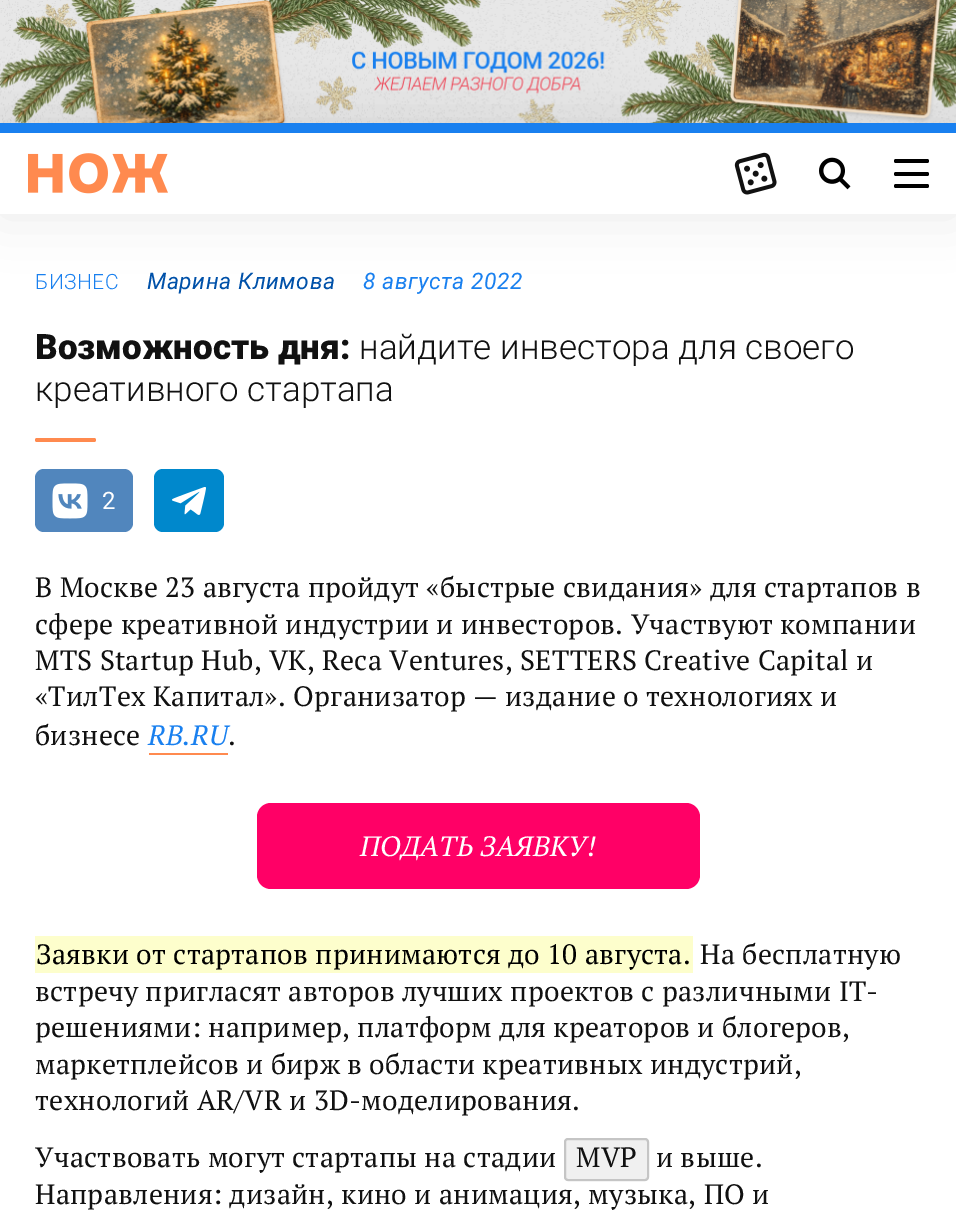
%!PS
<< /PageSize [956 1221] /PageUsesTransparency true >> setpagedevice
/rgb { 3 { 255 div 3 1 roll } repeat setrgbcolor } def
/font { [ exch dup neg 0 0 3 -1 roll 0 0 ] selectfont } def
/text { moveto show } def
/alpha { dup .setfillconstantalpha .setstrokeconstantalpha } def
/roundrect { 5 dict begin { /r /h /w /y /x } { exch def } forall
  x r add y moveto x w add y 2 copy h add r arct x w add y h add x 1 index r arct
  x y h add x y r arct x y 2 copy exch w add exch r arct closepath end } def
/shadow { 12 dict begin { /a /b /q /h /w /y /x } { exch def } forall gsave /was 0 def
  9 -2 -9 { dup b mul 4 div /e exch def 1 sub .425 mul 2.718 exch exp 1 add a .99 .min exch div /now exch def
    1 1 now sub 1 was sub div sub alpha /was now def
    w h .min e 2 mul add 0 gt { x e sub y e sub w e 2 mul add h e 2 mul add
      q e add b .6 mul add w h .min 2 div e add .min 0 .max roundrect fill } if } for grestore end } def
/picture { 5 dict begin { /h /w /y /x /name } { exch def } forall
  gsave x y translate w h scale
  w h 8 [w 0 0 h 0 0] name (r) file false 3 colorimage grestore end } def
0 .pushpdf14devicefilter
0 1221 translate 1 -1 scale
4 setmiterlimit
255 255 255 rgb
0 0 956 1221 rectfill
(img_01.rgb) 0 0 956 123 picture
0 0 0 rgb
0 124 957 91 0 26 0.08 shadow
255 255 255 rgb
0 133 956 81 rectfill
25 128 239 rgb
0 123 956 10 rectfill
(img_02.rgb) 28 153 140 41 picture
(img_03.rgb) 734 152 43 43 picture
(img_04.rgb) 819 157 32 33 picture
0 0 0 rgb
894 159 35 4 2 roundrect fill
894 172 35 4 2 roundrect fill
894 184 35 4 2 roundrect fill
255 138 79 rgb
35 438 61 4 2 roundrect fill
81 134 189 rgb
35 469 98 63 9 roundrect fill
(img_05.rgb) 52 483 36 36 picture
0 136 204 rgb
154 469 70 63 9 roundrect fill
(img_06.rgb) 172 487 34 28 picture
255 138 79 rgb
149 753 79 2 rectfill
255 0 102 rgb
257 803 443 86 14 roundrect fill
253 254 204 rgb
35 936 658 37 rectfill
240 240 240 rgb
564 1138 85 43 4 roundrect fill
0.18 alpha
0 0 0 rgb
2 setlinewidth
565 1139 83 41 3 roundrect stroke
/Roboto-Light 21 font
1 alpha
25 128 239 rgb
35 289 moveto 0.5 0 (БИЗНЕС) ashow
/Roboto-Italic 22.75 font
0 81 169 rgb
147 289 moveto 0.5 0 (Марина Климова) ashow
25 128 239 rgb
363 289 moveto 0.5 0 (8 августа 2022) ashow
/Roboto-Black 35 font
17 17 17 rgb
(Возможность дня:) 35 359 text
/Roboto-Light 35 font
(найдите инвестора для своего) 359 359 text
(креативного стартапа) 35 401 text
/Roboto-Regular 24 font
255 255 255 rgb
(2) 102 509 text
/PTSerif-Regular 28 font
17 17 17 rgb
35 597 moveto 0.28 0 (В Москве 23 августа пройдут «быстрые свидания» для стартапов в) ashow
35 634 moveto 0.28 0 (сфере креативной индустрии и инвесторов. Участвуют компании) ashow
35 670 moveto 0.28 0 (MTS Startup Hub, VK, Reca Ventures, SETTERS Creative Capital и) ashow
35 706 moveto 0.28 0 («ТилТех Капитал». Организатор — издание о технологиях и) ashow
35 745 moveto 0.28 0 (бизнесе) ashow
/PTSerif-Italic 28 font
25 128 239 rgb
148 745 moveto 0.28 0 (RB.RU) ashow
/PTSerif-Regular 28 font
17 17 17 rgb
228 745 moveto 0.28 0 (.) ashow
/PTSerif-Italic 28 font
255 255 255 rgb
360 856 moveto 0.28 0 (ПОДАТЬ ЗАЯВКУ!) ashow
/PTSerif-Regular 28 font
0 0 0 rgb
36 964 moveto 0.28 0 (Заявки от стартапов принимаются до 10 августа.) ashow
17 17 17 rgb
700 964 moveto 0.28 0 (На бесплатную) ashow
35 1001 moveto 0.28 0 (встречу пригласят авторов лучших проектов с различными IT-) ashow
35 1037 moveto 0.28 0 (решениями: например, платформ для креаторов и блогеров,) ashow
35 1074 moveto 0.28 0 (маркетплейсов и бирж в области креативных индустрий,) ashow
35 1110 moveto 0.28 0 (технологий AR/VR и 3D-моделирования.) ashow
35 1167 moveto 0.28 0 (Участвовать могут стартапы на стадии) ashow
576 1167 moveto 0.28 0 (MVP) ashow
656 1167 moveto 0.28 0 (и выше.) ashow
35 1204 moveto 0.28 0 (Направления: дизайн, кино и анимация, музыка, ПО и) ashow
.poppdf14devicefilter showpage
